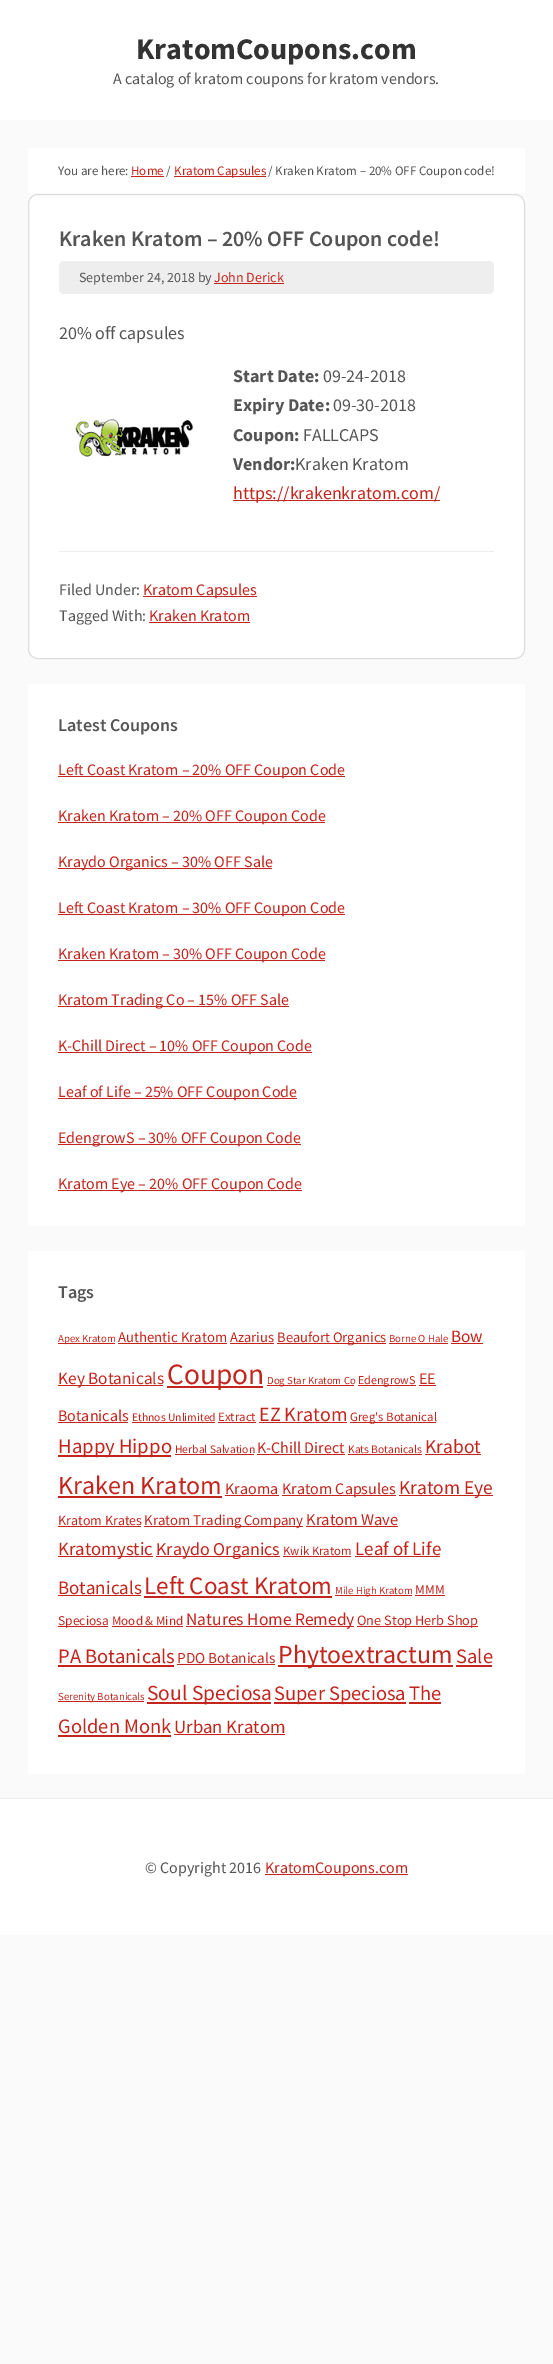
%!PS
<< /PageSize [553 2364] >> setpagedevice
/rgb { 3 { 255 div 3 1 roll } repeat setrgbcolor } def
/font { [ exch dup neg 0 0 3 -1 roll 0 0 ] selectfont } def
/text { moveto show } def
/roundrect { 5 dict begin { /r /h /w /y /x } { exch def } forall
  x r add y moveto x w add y 2 copy h add r arct x w add y h add x 1 index r arct
  x y h add x y r arct x y 2 copy exch w add exch r arct closepath end } def
/picture { 5 dict begin { /h /w /y /x /name } { exch def } forall
  gsave x y translate w h scale
  w h 8 [w 0 0 h 0 0] name (r) file false 3 colorimage grestore end } def
0 2364 translate 1 -1 scale
4 setmiterlimit
250 250 250 rgb
0 0 553 2364 rectfill
255 255 255 rgb
0 0 553 120 rectfill
28 148 497 45 rectfill
195 37 29 rgb
131 176 33 1 rectfill
174 176 92 1 rectfill
255 255 255 rgb
28.5 194.5 496 464 9.5 roundrect gsave fill grestore
221 221 221 rgb
stroke
238 238 238 rgb
59 261 435 33 5 roundrect fill
195 37 29 rgb
214 283 70 1 rectfill
(img_01.rgb) 75 419 119 38 picture
233 500 207 1 rectfill
238 238 238 rgb
59 551 435 1 rectfill
195 37 29 rgb
143 596 114 1 rectfill
149 622 101 1 rectfill
255 255 255 rgb
28 684 497 542 rectfill
195 37 29 rgb
58 776 287 1 rectfill
58 822 267 1 rectfill
58 868 214 1 rectfill
58 914 287 1 rectfill
58 960 267 1 rectfill
58 1006 231 1 rectfill
58 1052 254 1 rectfill
58 1098 239 1 rectfill
58 1144 243 1 rectfill
58 1190 244 1 rectfill
255 255 255 rgb
28 1251 497 523 rectfill
195 37 29 rgb
58 1343 57 1 rectfill
118 1343 109 1 rectfill
230 1343 44 1 rectfill
277 1343 109 1 rectfill
389 1343 59 1 rectfill
451 1343 32 1 rectfill
58 1385 105 1 rectfill
167 1386 96 2 rectfill
267 1385 87 1 rectfill
358 1385 58 1 rectfill
419 1385 17 1 rectfill
58 1422 70 1 rectfill
132 1422 83 1 rectfill
218 1422 38 1 rectfill
259 1422 88 1 rectfill
350 1422 86 1 rectfill
58 1455 113 2 rectfill
175 1454 79 1 rectfill
257 1454 88 1 rectfill
348 1454 74 1 rectfill
425 1454 56 1 rectfill
58 1496 164 2 rectfill
225 1495 54 1 rectfill
282 1495 114 1 rectfill
399 1495 94 1 rectfill
58 1526 83 1 rectfill
144 1526 159 1 rectfill
306 1526 92 1 rectfill
58 1556 95 1 rectfill
156 1556 124 1 rectfill
283 1556 68 1 rectfill
355 1556 85 1 rectfill
58 1595 83 1 rectfill
144 1596 188 2 rectfill
335 1595 77 1 rectfill
415 1595 30 1 rectfill
58 1626 50 1 rectfill
112 1626 71 1 rectfill
186 1626 168 1 rectfill
357 1626 121 1 rectfill
58 1665 116 2 rectfill
177 1664 98 1 rectfill
278 1665 175 2 rectfill
456 1665 36 2 rectfill
58 1701 86 1 rectfill
147 1702 124 2 rectfill
274 1702 132 2 rectfill
409 1702 32 2 rectfill
58 1735 113 2 rectfill
174 1734 111 1 rectfill
255 255 255 rgb
0 1799 553 136 rectfill
238 238 238 rgb
0 1798 553 1 rectfill
195 37 29 rgb
265 1874 143 1 rectfill
/SourceSansPro-Bold 30 font
51 51 51 rgb
(KratomCoupons.com) 136 59 text
/SourceSansPro-Regular 16 font
85 85 85 rgb
(A catalog of kratom coupons for kratom vendors.) 113 84 text
/SourceSansPro-Regular 13 font
(You are here:) 58 175 text
195 37 29 rgb
(Home) 131 175 text
85 85 85 rgb
(/) 166 175 text
195 37 29 rgb
(Kratom Capsules) 174 175 text
85 85 85 rgb
(/ Kraken Kratom – 20% OFF Coupon code!) 268 175 text
/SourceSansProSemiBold-SemiBold 22 font
(Kraken Kratom – 20% OFF Coupon code!) 59 246 text
/SourceSansPro-Regular 14 font
(September 24, 2018 by) 79 282 text
195 37 29 rgb
(John Derick) 214 282 text
/SourceSansPro-Regular 18 font
85 85 85 rgb
(20% off capsules) 59 339 text
/SourceSansPro-Bold 18 font
(Start Date:) 233 382 text
/SourceSansPro-Regular 18 font
(09-24-2018) 323 382 text
/SourceSansPro-Bold 18 font
(Expiry Date:) 233 411 text
/SourceSansPro-Regular 18 font
(09-30-2018) 333 411 text
/SourceSansPro-Bold 18 font
(Coupon:) 233 441 text
/SourceSansPro-Regular 18 font
(FALLCAPS) 303 441 text
/SourceSansPro-Bold 18 font
(Vendor:) 233 470 text
/SourceSansPro-Regular 18 font
(Kraken Kratom) 295 470 text
195 37 29 rgb
(https://krakenkratom.com/) 233 499 text
/SourceSansPro-Regular 16 font
85 85 85 rgb
(Filed Under:) 59 595 text
195 37 29 rgb
(Kratom Capsules) 143 595 text
85 85 85 rgb
(Tagged With:) 59 621 text
195 37 29 rgb
(Kraken Kratom) 149 621 text
/SourceSansProSemiBold-SemiBold 18 font
85 85 85 rgb
(Latest Coupons) 58 731 text
/SourceSansPro-Regular 16 font
195 37 29 rgb
(Left Coast Kratom – 20% OFF Coupon Code) 58 775 text
(Kraken Kratom – 20% OFF Coupon Code) 58 821 text
(Kraydo Organics – 30% OFF Sale) 58 867 text
(Left Coast Kratom – 30% OFF Coupon Code) 58 913 text
(Kraken Kratom – 30% OFF Coupon Code) 58 959 text
(Kratom Trading Co – 15% OFF Sale) 58 1005 text
(K-Chill Direct – 10% OFF Coupon Code) 58 1051 text
(Leaf of Life – 25% OFF Coupon Code) 58 1097 text
(EdengrowS – 30% OFF Coupon Code) 58 1143 text
(Kratom Eye – 20% OFF Coupon Code) 58 1189 text
/SourceSansProSemiBold-SemiBold 18 font
85 85 85 rgb
(Tags) 58 1298 text
/SourceSansPro-Regular 10.75 font
195 37 29 rgb
(Apex Kratom) 58 1342 text
/SourceSansPro-Regular 14.75 font
(Authentic Kratom) 118 1342 text
/SourceSansPro-Regular 14.5 font
(Azarius) 230 1342 text
(Beaufort Organics) 277 1342 text
/SourceSansPro-Regular 10.75 font
(Borne O Hale) 389 1342 text
/SourceSansPro-Regular 17.25 font
(Bow) 451 1342 text
(Key Botanicals) 58 1384 text
/SourceSansPro-Regular 29.5 font
(Coupon) 167 1384 text
/SourceSansPro-Regular 10.75 font
(Dog Star Kratom Co) 267 1384 text
/SourceSansPro-Regular 12 font
(EdengrowS) 358 1384 text
/SourceSansPro-Regular 16 font
(EE) 419 1384 text
(Botanicals) 58 1421 text
/SourceSansPro-Regular 11.5 font
(Ethnos Unlimited) 132 1421 text
/SourceSansPro-Regular 12.75 font
(Extract) 218 1421 text
/SourceSansPro-Regular 20 font
(EZ Kratom) 259 1421 text
/SourceSansPro-Regular 12.75 font
(Greg's Botanical) 350 1421 text
/SourceSansPro-Regular 20.75 font
(Happy Hippo) 58 1453 text
/SourceSansPro-Regular 11.5 font
(Herbal Salvation) 175 1453 text
/SourceSansPro-Regular 16 font
(K-Chill Direct) 257 1453 text
/SourceSansPro-Regular 11.5 font
(Kats Botanicals) 348 1453 text
/SourceSansPro-Regular 19.5 font
(Krabot) 425 1453 text
/SourceSansPro-Regular 26 font
(Kraken Kratom) 58 1494 text
/SourceSansPro-Regular 16 font
(Kraoma) 225 1494 text
(Kratom Capsules) 282 1494 text
/SourceSansPro-Regular 19.5 font
(Kratom Eye) 399 1494 text
/SourceSansPro-Regular 14 font
(Kratom Krates) 58 1525 text
/SourceSansPro-Regular 14.75 font
(Kratom Trading Company) 144 1525 text
/SourceSansPro-Regular 16.5 font
(Kratom Wave) 306 1525 text
/SourceSansPro-Regular 18.75 font
(Kratomystic) 58 1555 text
/SourceSansPro-Regular 18 font
(Kraydo Organics) 156 1555 text
/SourceSansPro-Regular 12.75 font
(Kwik Kratom) 283 1555 text
/SourceSansPro-Regular 19 font
(Leaf of Life) 355 1555 text
(Botanicals) 58 1594 text
/SourceSansPro-Regular 25 font
(Left Coast Kratom) 144 1594 text
/SourceSansPro-Regular 10.75 font
(Mile High Kratom) 335 1594 text
/SourceSansPro-Regular 13.5 font
(MMM) 415 1594 text
(Speciosa) 58 1625 text
/SourceSansPro-Regular 13 font
(Mood & Mind) 112 1625 text
/SourceSansPro-Regular 17.5 font
(Natures Home Remedy) 186 1625 text
/SourceSansPro-Regular 14.25 font
(One Stop Herb Shop) 357 1625 text
/SourceSansPro-Regular 20.5 font
(PA Botanicals) 58 1663 text
/SourceSansPro-Regular 15.25 font
(PDO Botanicals) 177 1663 text
/SourceSansPro-Regular 25.75 font
(Phytoextractum) 278 1663 text
/SourceSansPro-Regular 20.5 font
(Sale) 456 1663 text
/SourceSansPro-Regular 10.75 font
(Serenity Botanicals) 58 1700 text
/SourceSansPro-Regular 21.5 font
(Soul Speciosa) 147 1700 text
/SourceSansPro-Regular 20.5 font
(Super Speciosa) 274 1700 text
(The) 409 1700 text
(Golden Monk) 58 1733 text
/SourceSansPro-Regular 18.75 font
(Urban Kratom) 174 1733 text
/SourceSansPro-Regular 16 font
85 85 85 rgb
(© Copyright 2016) 145 1873 text
195 37 29 rgb
(KratomCoupons.com) 265 1873 text
showpage
